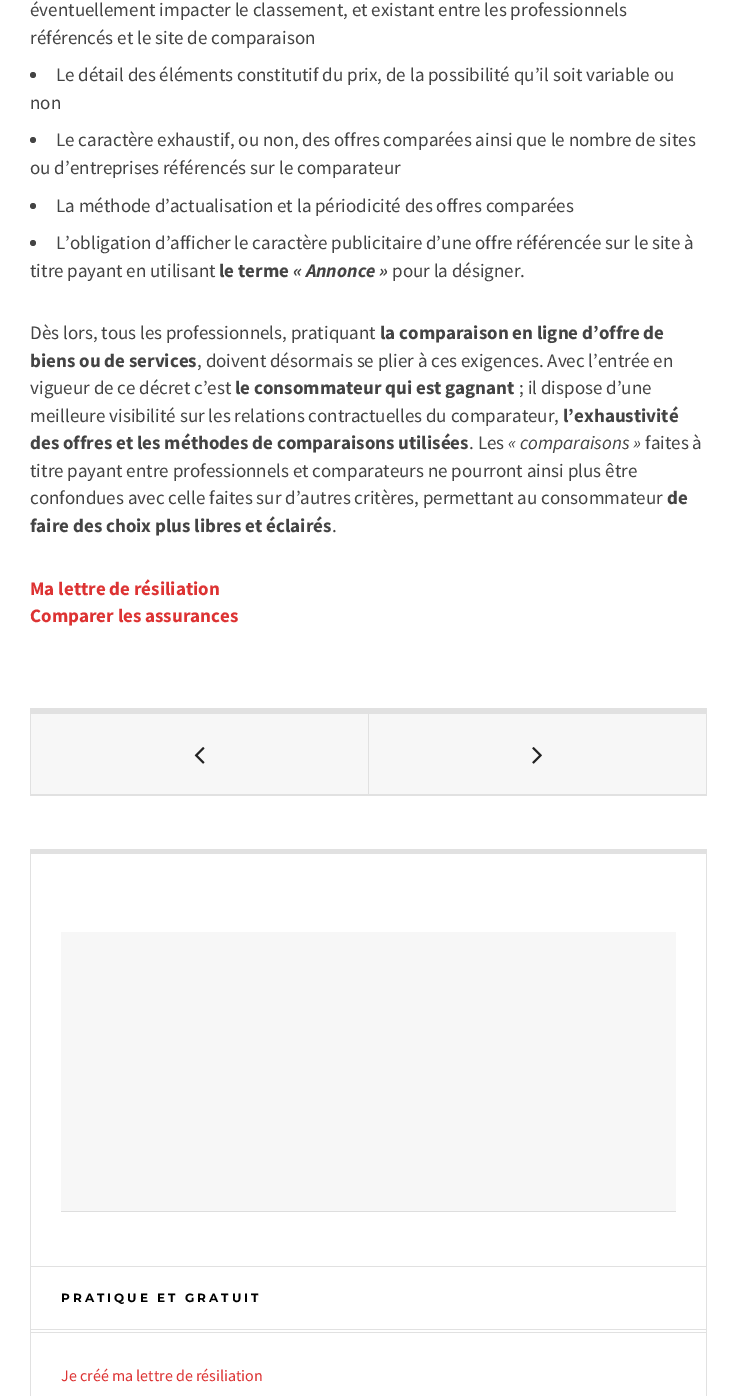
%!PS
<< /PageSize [737 1396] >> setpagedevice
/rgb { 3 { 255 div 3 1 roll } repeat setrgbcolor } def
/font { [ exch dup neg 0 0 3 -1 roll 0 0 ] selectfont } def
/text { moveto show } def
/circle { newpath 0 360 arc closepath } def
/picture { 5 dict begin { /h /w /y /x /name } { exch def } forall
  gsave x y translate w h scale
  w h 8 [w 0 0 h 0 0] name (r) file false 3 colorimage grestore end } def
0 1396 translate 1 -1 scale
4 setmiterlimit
255 255 255 rgb
0 0 737 1396 rectfill
68 68 68 rgb
33 75 3 circle fill
33 140 3 circle fill
33 206 3 circle fill
33 243 3 circle fill
225 225 225 rgb
30 708 677 5 rectfill
706 708 1 88 rectfill
30 795 677 1 rectfill
30 708 1 88 rectfill
31 794 675 1 rectfill
31 713 675 1 rectfill
247 247 247 rgb
31 714 337 80 rectfill
225 225 225 rgb
368 714 1 80 rectfill
(img_01.rgb) 194 747 11 17 picture
247 247 247 rgb
369 714 337 80 rectfill
(img_02.rgb) 532 747 10 17 picture
225 225 225 rgb
30 849 677 5 rectfill
706 849 1 547 rectfill
30 849 1 547 rectfill
247 247 247 rgb
61 932 615 279 rectfill
222 222 222 rgb
61 1211 615 1 rectfill
225 225 225 rgb
31 1266 675 1 rectfill
31 1329 675 1 rectfill
31 1332 675 1 rectfill
/SourceSansPro-Regular 19 font
68 68 68 rgb
(éventuellement impacter le classement, et existant entre les professionnels) 30 16 text
(référencés et le site de comparaison) 30 44 text
(Le détail des éléments constitutif du prix, de la possibilité qu’il soit variable ou) 56 81 text
(non) 30 109 text
(Le caractère exhaustif, ou non, des offres comparées ainsi que le nombre de sites) 56 146 text
(ou d’entreprises référencés sur le comparateur) 30 174 text
(La méthode d’actualisation et la périodicité des offres comparées) 56 212 text
(L’obligation d’afficher le caractère publicitaire d’une offre référencée sur le site à) 56 249 text
(titre payant en utilisant) 30 277 text
/SourceSansPro-Bold 19 font
(le terme) 219 277 text
/SourceSansPro-BoldItalic 19 font
(« Annonce ») 293 277 text
/SourceSansPro-Regular 19 font
(pour la désigner.) 392 277 text
(Dès lors, tous les professionnels, pratiquant) 30 339 text
/SourceSansPro-Bold 19 font
(la comparaison en ligne d’offre de) 380 339 text
(biens ou de services) 30 367 text
/SourceSansPro-Regular 19 font
(, doivent désormais se plier à ces exigences. Avec l’entrée en) 197 367 text
(vigueur de ce décret c’est) 30 394 text
/SourceSansPro-Bold 19 font
(le consommateur qui est gagnant) 235 394 text
/SourceSansPro-Regular 19 font
(; il dispose d’une) 519 394 text
(meilleure visibilité sur les relations contractuelles du comparateur,) 30 422 text
/SourceSansPro-Bold 19 font
(l’exhaustivité) 563 422 text
(des offres et les méthodes de comparaisons utilisées) 30 449 text
/SourceSansPro-Regular 19 font
(. Les) 469 449 text
/SourceSansPro-Italic 19 font
(« comparaisons ») 508 449 text
/SourceSansPro-Regular 19 font
(faites à) 645 449 text
(titre payant entre professionnels et comparateurs ne pourront ainsi plus être) 30 477 text
(confondues avec celle faites sur d’autres critères, permettant au consommateur) 30 504 text
/SourceSansPro-Bold 19 font
(de) 667 504 text
(faire des choix plus libres et éclairés) 30 532 text
/SourceSansPro-Regular 19 font
(.) 332 532 text
/SourceSansPro-Bold 19 font
221 51 51 rgb
(Ma lettre de résiliation) 30 595 text
(Comparer les assurances) 30 622 text
/Montserrat-Bold 12 font
0 0 0 rgb
61 1302 moveto 3 0 (PRATIQUE ET GRATUIT) ashow
/SourceSansPro-Regular 16 font
221 51 51 rgb
(Je créé ma lettre de résiliation) 61 1381 text
showpage
